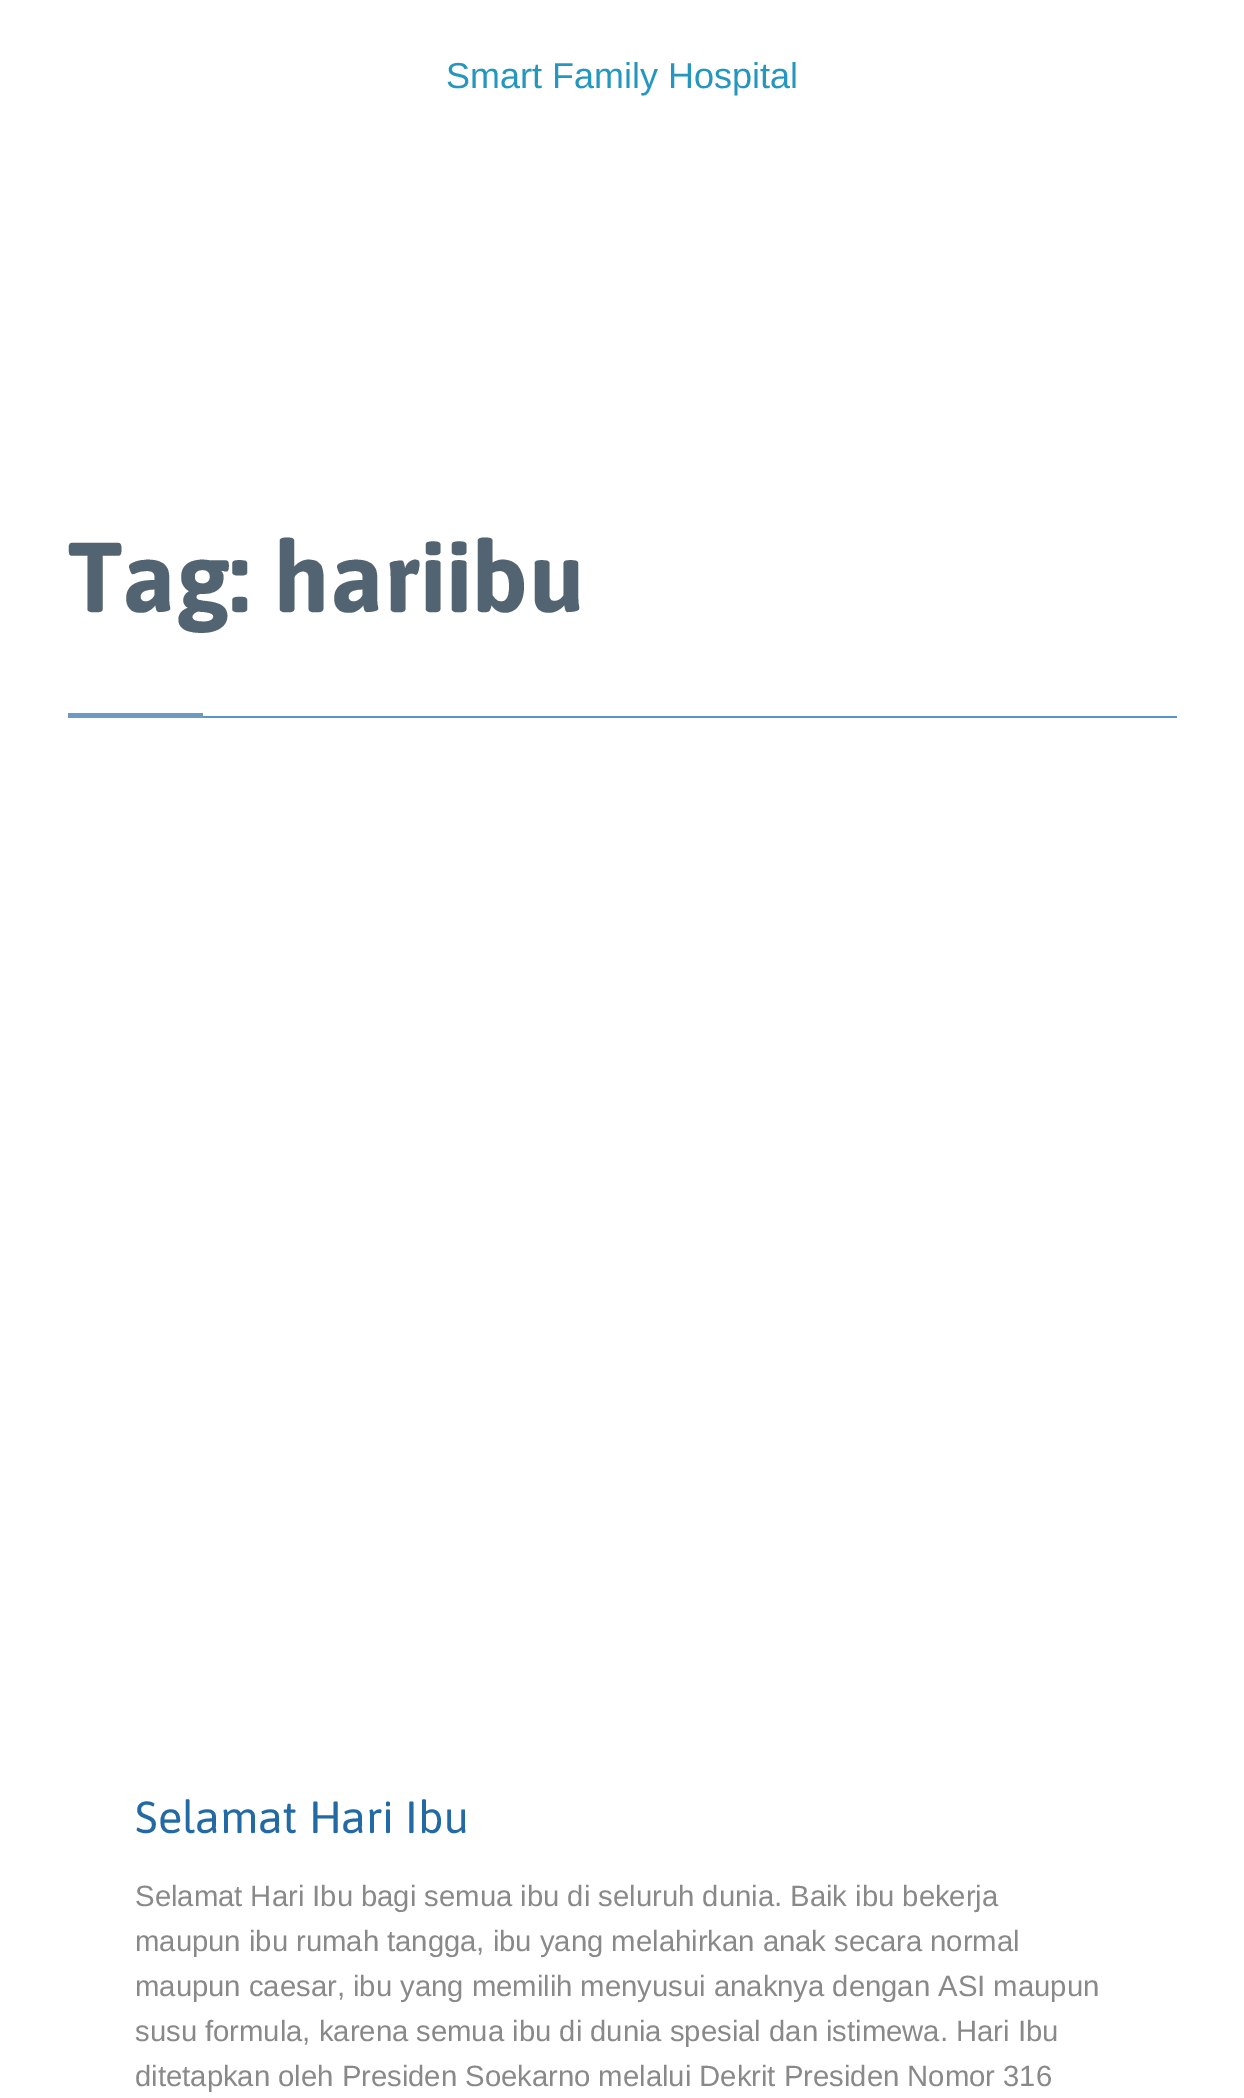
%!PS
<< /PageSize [1244 2098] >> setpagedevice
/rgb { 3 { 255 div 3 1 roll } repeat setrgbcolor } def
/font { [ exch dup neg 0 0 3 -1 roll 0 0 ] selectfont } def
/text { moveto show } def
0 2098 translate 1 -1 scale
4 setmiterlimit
255 255 255 rgb
0 0 1244 2098 rectfill
87 150 199 rgb
203 716 974 2 rectfill
110 153 194 rgb
68 713 135 5 rectfill
/LiberationSans-Regular 36 font
37 150 190 rgb
(Smart Family Hospital) 446 88 text
/Asap-Bold 99 font
82 99 113 rgb
(Tag: hariibu) 68 612 text
/Asap-Regular 45 font
35 106 164 rgb
(Selamat Hari Ibu) 135 1833 text
/LiberationSans-Regular 29.25 font
137 137 137 rgb
(Selamat Hari Ibu bagi semua ibu di seluruh dunia. Baik ibu bekerja) 135 1906 text
(maupun ibu rumah tangga, ibu yang melahirkan anak secara normal) 135 1951 text
(maupun caesar, ibu yang memilih menyusui anaknya dengan ASI maupun) 135 1996 text
(susu formula, karena semua ibu di dunia spesial dan istimewa. Hari Ibu) 135 2041 text
(ditetapkan oleh Presiden Soekarno melalui Dekrit Presiden Nomor 316) 135 2086 text
showpage
